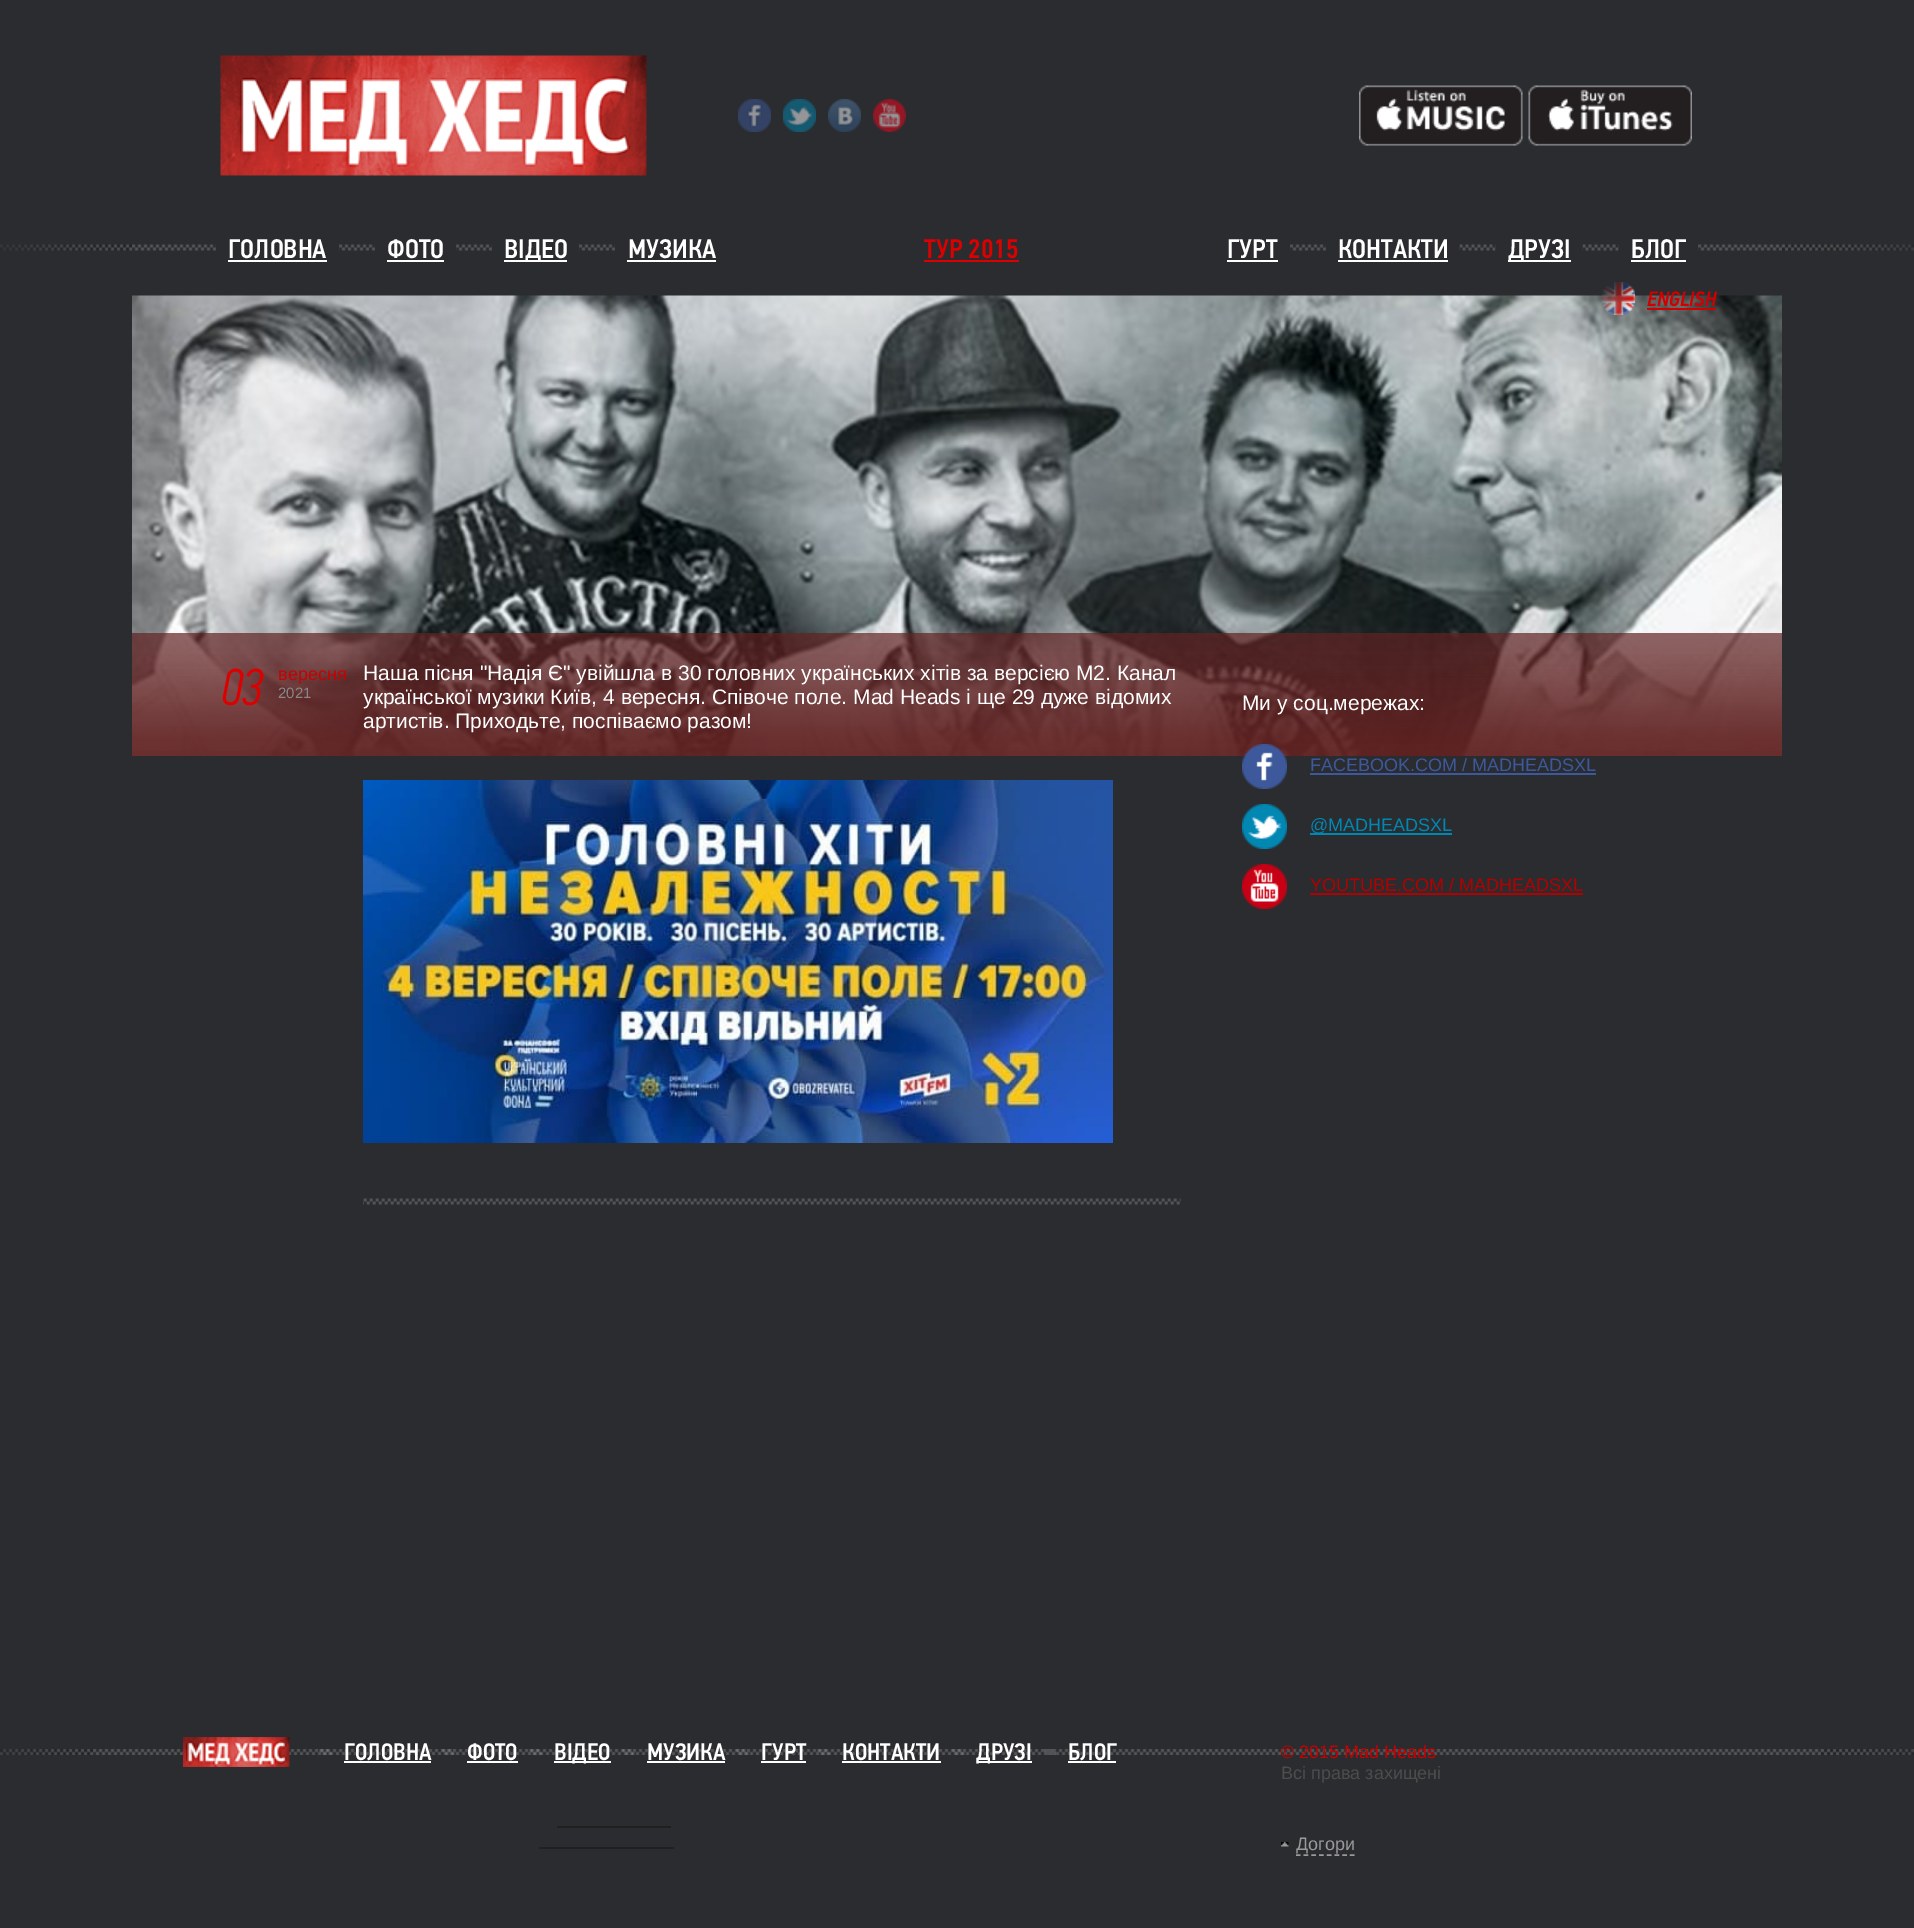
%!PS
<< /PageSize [1914 1928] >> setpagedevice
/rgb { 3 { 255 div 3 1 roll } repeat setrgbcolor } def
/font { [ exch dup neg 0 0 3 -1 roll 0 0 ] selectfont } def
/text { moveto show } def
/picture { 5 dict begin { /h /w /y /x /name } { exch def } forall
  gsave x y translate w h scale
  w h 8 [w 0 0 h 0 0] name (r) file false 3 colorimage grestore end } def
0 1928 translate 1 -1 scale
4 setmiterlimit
42 44 47 rgb
0 0 1914 1928 rectfill
(img_01.rgb) 132 295 1650 461 picture
(img_02.rgb) 0 244 132 7 picture
(img_03.rgb) 132 244 84 7 picture
255 255 255 rgb
228 260 99 2 rectfill
(img_04.rgb) 339 244 36 7 picture
387 260 57 2 rectfill
(img_05.rgb) 456 244 36 7 picture
504 260 63 2 rectfill
(img_05.rgb) 579 244 36 7 picture
627 260 89 2 rectfill
221 0 0 rgb
924 260 95 2 rectfill
255 255 255 rgb
1227 260 51 2 rectfill
(img_06.rgb) 1290 244 36 7 picture
1338 260 110 2 rectfill
(img_07.rgb) 1459 244 37 7 picture
1508 260 63 2 rectfill
(img_07.rgb) 1582 244 37 7 picture
1631 260 55 2 rectfill
(img_03.rgb) 1698 244 84 7 picture
(img_08.rgb) 220 55 427 121 picture
(img_09.rgb) 738 99 33 33 picture
(img_10.rgb) 783 99 33 33 picture
(img_11.rgb) 828 99 33 33 picture
(img_12.rgb) 873 99 33 33 picture
(img_13.rgb) 1359 85 164 61 picture
(img_14.rgb) 1528 85 164 61 picture
(img_15.rgb) 1602 282 33 33 picture
209 0 0 rgb
1647 308 69 2 rectfill
(img_16.rgb) 1782 244 132 7 picture
(img_17.rgb) 132 633 1650 123 picture
(img_18.rgb) 363 1198 818 7 picture
(img_19.rgb) 363 780 750 363 picture
(img_20.rgb) 1242 744 45 45 picture
61 89 155 rgb
1310 773 286 2 rectfill
(img_21.rgb) 1242 804 45 45 picture
0 135 178 rgb
1310 833 142 2 rectfill
(img_22.rgb) 1242 864 45 45 picture
180 0 0 rgb
1310 893 273 2 rectfill
(img_23.rgb) 0 1749 93 6 picture
(img_24.rgb) 93 1749 1728 6 picture
(img_25.rgb) 183 1737 107 30 picture
(img_26.rgb) 319 1749 13 6 picture
255 255 255 rgb
344 1761 87 2 rectfill
(img_27.rgb) 442 1749 13 6 picture
467 1761 51 2 rectfill
(img_28.rgb) 529 1749 13 6 picture
554 1761 57 2 rectfill
(img_27.rgb) 622 1749 13 6 picture
647 1761 78 2 rectfill
(img_27.rgb) 736 1749 13 6 picture
761 1761 45 2 rectfill
(img_26.rgb) 817 1749 13 6 picture
842 1761 99 2 rectfill
(img_29.rgb) 952 1749 13 6 picture
977 1761 55 2 rectfill
(img_30.rgb) 1044 1749 12 6 picture
1068 1761 48 2 rectfill
32 32 32 rgb
557 1826 114 2 rectfill
539 1847 135 2 rectfill
(img_31.rgb) 1281 1842 8 5 picture
154 154 154 rgb
1.5 setlinewidth
[4.5 3.21] 0 setdash
1296 1855 moveto 58.5 0 rlineto stroke
(img_32.rgb) 1821 1749 93 6 picture
/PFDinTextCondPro-Medium 27 font
255 255 255 rgb
(ГОЛОВНА) 228 258 text
(ФОТО) 387 258 text
(ВІДЕО) 504 258 text
(МУЗИКА) 628 258 text
221 0 0 rgb
(ТУР 2015) 924 258 text
255 255 255 rgb
(ГУРТ) 1227 258 text
(КОНТАКТИ) 1338 258 text
(ДРУЗІ) 1508 258 text
(БЛОГ) 1631 258 text
/PFDinTextCondPro-MediumItalic 21 font
209 0 0 rgb
(ENGLISH) 1647 306 text
/PFDinTextCondPro-LightItalic 52 font
221 0 0 rgb
(03) 221 705 text
/LiberationSans-Regular 18 font
200 0 0 rgb
(вересня) 278 680 text
/LiberationSans-Regular 15 font
136 136 136 rgb
(2021) 278 698 text
/LiberationSans-Regular 21 font
255 255 255 rgb
(Наша пісня "Надія Є" увійшла в 30 головних українських хітів за версією М2. Канал) 363 680 text
(української музики Київ, 4 вересня. Співоче поле. Mad Heads і ще 29 дуже відомих) 363 704 text
(артистів. Приходьте, поспіваємо разом!) 363 728 text
(Ми у соц.мережах:) 1242 710 text
/LiberationSans-Regular 18 font
61 89 155 rgb
(FACEBOOK.COM / MADHEADSXL) 1310 771 text
0 135 178 rgb
(@MADHEADSXL) 1310 831 text
180 0 0 rgb
(YOUTUBE.COM / MADHEADSXL) 1310 891 text
/PFDinTextCondPro-Medium 24 font
255 255 255 rgb
(ГОЛОВНА) 344 1760 text
(ФОТО) 467 1760 text
(ВІДЕО) 554 1760 text
(МУЗИКА) 647 1760 text
(ГУРТ) 761 1760 text
(КОНТАКТИ) 842 1760 text
(ДРУЗІ) 976 1760 text
(БЛОГ) 1068 1760 text
/LiberationSans-Regular 18 font
200 0 0 rgb
(© 2015 Mad Heads) 1281 1758 text
77 77 77 rgb
(Всі права захищені) 1281 1779 text
154 154 154 rgb
(Догори) 1296 1850 text
showpage
